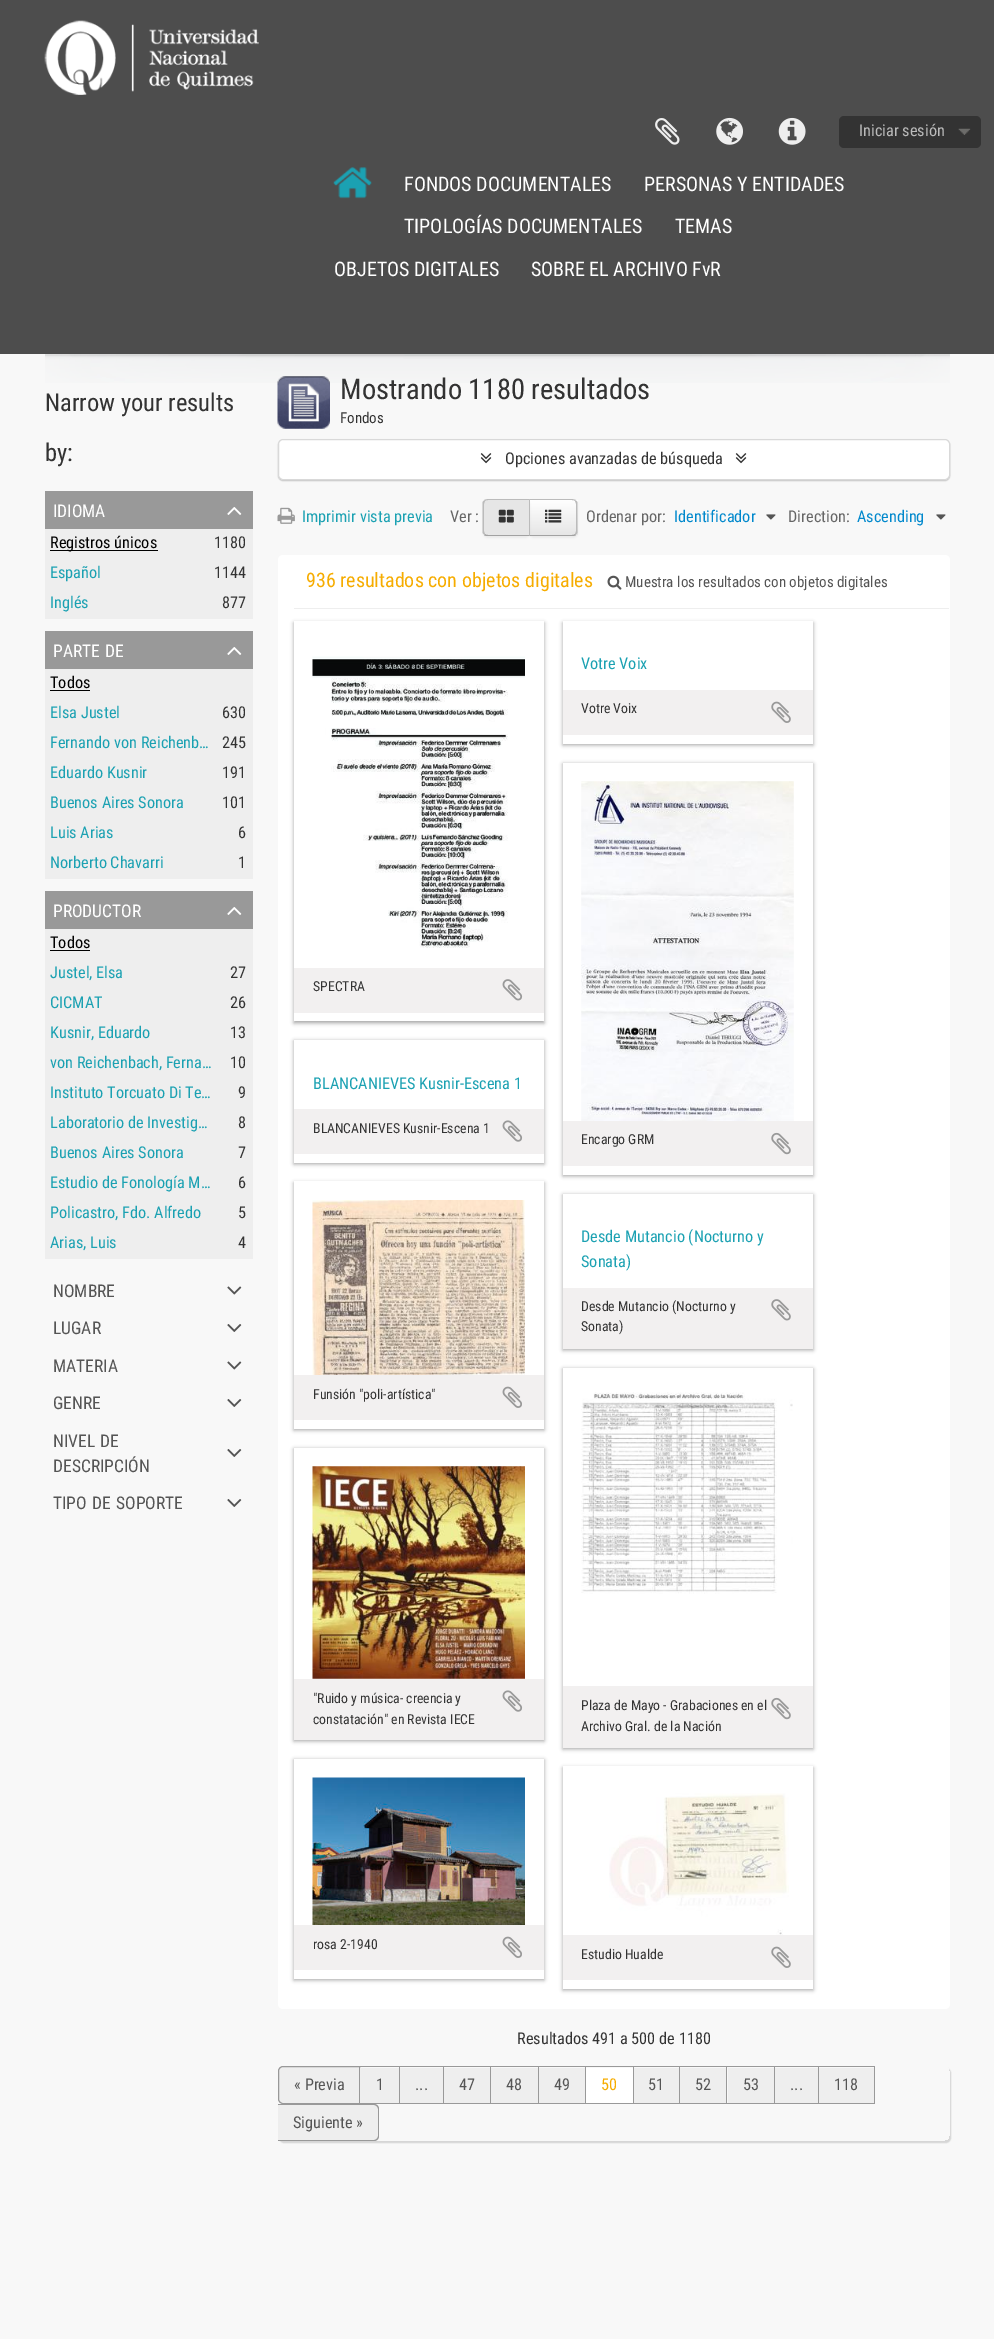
%!PS
<< /PageSize [994 2339] /PageUsesTransparency true >> setpagedevice
/rgb { 3 { 255 div 3 1 roll } repeat setrgbcolor } def
/font { [ exch dup neg 0 0 3 -1 roll 0 0 ] selectfont } def
/text { moveto show } def
/alpha { dup .setfillconstantalpha .setstrokeconstantalpha } def
/roundrect { 5 dict begin { /r /h /w /y /x } { exch def } forall
  x r add y moveto x w add y 2 copy h add r arct x w add y h add x 1 index r arct
  x y h add x y r arct x y 2 copy exch w add exch r arct closepath end } def
/shadow { 12 dict begin { /a /b /q /h /w /y /x } { exch def } forall gsave /was 0 def
  9 -2 -9 { dup b mul 4 div /e exch def 1 sub .425 mul 2.718 exch exp 1 add a .99 .min exch div /now exch def
    1 1 now sub 1 was sub div sub alpha /was now def
    w h .min e 2 mul add 0 gt { x e sub y e sub w e 2 mul add h e 2 mul add
      q e add b .6 mul add w h .min 2 div e add .min 0 .max roundrect fill } if } for grestore end } def
/picture { 5 dict begin { /h /w /y /x /name } { exch def } forall
  gsave x y translate w h scale
  w h 8 [w 0 0 h 0 0] name (r) file false 3 colorimage grestore end } def
0 .pushpdf14devicefilter
0 2339 translate 1 -1 scale
4 setmiterlimit
248 248 248 rgb
0 0 994 2339 rectfill
77 77 77 rgb
0 0 994 354 rectfill
(img_01.rgb) 44 20 215 75 picture
(img_02.rgb) 655 118 25 27 picture
(img_03.rgb) 716 117 27 28 picture
(img_04.rgb) 778 117 28 28 picture
51 51 51 rgb
839 116 142 32 5 roundrect fill
(img_05.rgb) 958 128 13 7 picture
(img_06.rgb) 333 167 39 32 picture
(img_07.rgb) 45 354 905 29 picture
153 153 153 rgb
45 491 208 38 rectfill
(img_08.rgb) 227 507 15 8 picture
238 238 238 rgb
45 529 208 90 rectfill
0 0 0 rgb
50 550 108 1 rectfill
153 153 153 rgb
45 631 208 38 rectfill
(img_08.rgb) 227 647 15 8 picture
238 238 238 rgb
45 669 208 210 rectfill
0 0 0 rgb
50 690 40 1 rectfill
153 153 153 rgb
45 891 208 38 rectfill
(img_08.rgb) 227 907 15 8 picture
238 238 238 rgb
45 929 208 330 rectfill
0 0 0 rgb
50 950 40 1 rectfill
(img_09.rgb) 227 1286 15 9 picture
(img_10.rgb) 227 1324 15 8 picture
(img_09.rgb) 227 1361 15 9 picture
(img_10.rgb) 227 1399 15 8 picture
(img_10.rgb) 227 1449 15 8 picture
(img_10.rgb) 227 1499 15 8 picture
(img_11.rgb) 277 376 53 53 picture
278 440 672 41 5 0.5 0.2 shadow
255 255 255 rgb
278.5 439.5 671 40 4.5 roundrect gsave fill grestore
217 217 217 rgb
stroke
(img_12.rgb) 480 453 12 11 picture
(img_12.rgb) 735 453 12 11 picture
(img_13.rgb) 277 507 18 17 picture
0 0 0 rgb
529 500 49 38 5 1 0.05 shadow
245 245 245 rgb
529 499 moveto 44 0 rlineto 3 0 5 2 5 5 rcurveto 0 27 rlineto 0 3 -2 5 -5 5 rcurveto -44 0 rlineto closepath fill
gsave
529 499 moveto 44 0 rlineto 3 0 5 2 5 5 rcurveto 0 27 rlineto 0 3 -2 5 -5 5 rcurveto -44 0 rlineto closepath clip newpath
gsave 530 500 moveto 48 0 rlineto 0 35 rlineto -48 0 rlineto closepath clip newpath
<< /ShadingType 2 /ColorSpace /DeviceRGB /Coords [553 500 553 535] /Extend [true true] /Function << /FunctionType 2 /Domain [0 1] /C0 [1 1 1] /C1 [0.902 0.902 0.902] /N 1 >> >> shfill grestore
grestore
187 187 187 rgb
529 499 moveto 1 1 rlineto 42 0 rlineto 1 0 2 0 3 1 rcurveto 1 -1 rlineto -4 -1 rlineto closepath fill
576 500.5 moveto 1.5 1.5 rlineto 0 31 rlineto -1.5 1.5 rlineto -1 -0.5 rlineto 0.5 -1 1 -2 1 -3 rcurveto 0 -27 rlineto 0 -1 -0.5 -2 -1 -3 rcurveto closepath fill
162 162 162 rgb
576 535 moveto -1 1 -3 1 -4 1 rcurveto -43 0 rlineto 1 -1 rlineto 42 0 rlineto 1 0 2 0 3 -1 rcurveto closepath fill
0 0 0 rgb
483 500 47 38 5 1 0.05 shadow
230 230 230 rgb
488 499 moveto 42 0 rlineto 0 37 rlineto -42 0 rlineto -3 0 -5 -2 -5 -5 rcurveto 0 -27 rlineto 0 -3 2 -5 5 -5 rcurveto closepath fill
187 187 187 rgb
488 499 moveto -4 1 rlineto 1 1 rlineto 1 -1 2 -1 3 -1 rcurveto 41 0 rlineto 1 -1 rlineto closepath fill
530 536 moveto 0 -37 rlineto -1 1 rlineto 0 35 rlineto closepath fill
162 162 162 rgb
530 536 moveto -42 0 rlineto -1 0 -3 0 -4 -1 rcurveto 1 -1 rlineto 1 1 2 1 3 1 rcurveto 41 0 rlineto closepath fill
187 187 187 rgb
482.5 502 moveto 1.5 -1.5 rlineto 1 0.5 rlineto -0.5 1 -1 2 -1 3 rcurveto 0 27 rlineto 0 1 0.5 2 1 3 rcurveto -1 0.5 rlineto -1.5 -1.5 rlineto closepath fill
(img_14.rgb) 498 509 16 14 picture
(img_15.rgb) 545 509 17 14 picture
(img_16.rgb) 766 514 10 6 picture
(img_16.rgb) 936 514 10 6 picture
255 255 255 rgb
278 555 672 1454 5 roundrect fill
238 238 238 rgb
294 608 655 1 rectfill
(img_17.rgb) 607 575 15 15 picture
25 25 25 rgb
563 623 250 122 0 2 0.4 shadow
255 255 255 rgb
563 621 250 123 rectfill
242 240 240 rgb
563 690 250 45 rectfill
(img_18.rgb) 771 701 20 22 picture
25 25 25 rgb
294 623 250 400 0 2 0.4 shadow
255 255 255 rgb
294 621 250 400 rectfill
(img_19.rgb) 312 656 213 292 picture
242 240 240 rgb
294 968 250 45 rectfill
(img_20.rgb) 502 979 21 22 picture
25 25 25 rgb
294 1041 250 123 0 2 0.4 shadow
255 255 255 rgb
294 1040 250 123 rectfill
242 240 240 rgb
294 1109 250 45 rectfill
(img_21.rgb) 502 1120 21 22 picture
25 25 25 rgb
563 764 250 412 0 2 0.4 shadow
255 255 255 rgb
563 763 250 412 rectfill
(img_22.rgb) 581 781 213 340 picture
242 240 240 rgb
563 1121 250 45 rectfill
(img_23.rgb) 771 1132 20 23 picture
25 25 25 rgb
563 1195 250 155 0 2 0.4 shadow
255 255 255 rgb
563 1194 250 94 rectfill
242 240 240 rgb
563 1288 250 61 rectfill
(img_24.rgb) 771 1299 20 22 picture
25 25 25 rgb
294 1183 250 247 0 2 0.4 shadow
255 255 255 rgb
294 1181 250 248 rectfill
(img_25.rgb) 312 1200 213 175 picture
242 240 240 rgb
294 1375 250 45 rectfill
(img_26.rgb) 502 1386 20 22 picture
25 25 25 rgb
294 1449 250 292 0 2 0.4 shadow
255 255 255 rgb
294 1448 250 231 rectfill
(img_27.rgb) 312 1466 213 213 picture
242 240 240 rgb
294 1679 250 61 rectfill
(img_21.rgb) 502 1690 21 22 picture
25 25 25 rgb
563 1369 250 380 0 2 0.4 shadow
255 255 255 rgb
563 1368 250 318 rectfill
(img_28.rgb) 581 1392 212 202 picture
242 240 240 rgb
563 1686 250 62 rectfill
(img_23.rgb) 771 1697 20 23 picture
25 25 25 rgb
294 1760 250 220 0 2 0.4 shadow
255 255 255 rgb
294 1759 250 220 rectfill
(img_29.rgb) 312 1777 213 148 picture
242 240 240 rgb
294 1925 250 45 rectfill
(img_26.rgb) 502 1936 20 22 picture
25 25 25 rgb
563 1768 250 222 0 2 0.4 shadow
255 255 255 rgb
563 1766 250 223 rectfill
(img_30.rgb) 609 1793 180 142 picture
242 240 240 rgb
563 1935 250 45 rectfill
(img_18.rgb) 771 1946 20 22 picture
gsave
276 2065 moveto 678 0 rlineto 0 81 rlineto -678 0 rlineto closepath 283 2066 moveto 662 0 rlineto 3 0 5 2 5 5 rcurveto 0 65 rlineto 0 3 -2 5 -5 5 rcurveto -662 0 rlineto -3 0 -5 -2 -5 -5 rcurveto 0 -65 rlineto 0 -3 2 -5 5 -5 rcurveto closepath eoclip newpath
25 25 25 rgb
279 2068 672 75 5 0.5 0.15 shadow
grestore
238 238 238 rgb
283 2066.5 moveto 76.5 0 rlineto 0 37 rlineto -76.5 0 rlineto -2.5 0 -4.5 -2 -4.5 -4.5 rcurveto 0 -28 rlineto 0 -2.5 2 -4.5 4.5 -4.5 rcurveto closepath gsave fill grestore
153 153 153 rgb
stroke
238 238 238 rgb
360 2068 39 35 rectfill
153 153 153 rgb
360 2066 515 1 rectfill
399 2066 1 38 rectfill
360 2103 40 1 rectfill
238 238 238 rgb
400 2068 43 35 rectfill
153 153 153 rgb
443 2066 1 38 rectfill
400 2103 44 1 rectfill
238 238 238 rgb
444 2068 46 35 rectfill
153 153 153 rgb
490 2066 1 38 rectfill
444 2103 47 1 rectfill
238 238 238 rgb
491 2068 47 35 rectfill
153 153 153 rgb
538 2066 1 38 rectfill
491 2103 48 1 rectfill
238 238 238 rgb
539 2068 46 35 rectfill
153 153 153 rgb
585 2066 1 38 rectfill
539 2103 47 1 rectfill
255 255 255 rgb
586 2068 47 35 rectfill
153 153 153 rgb
633 2066 1 38 rectfill
586 2103 48 1 rectfill
238 238 238 rgb
634 2068 45 35 rectfill
153 153 153 rgb
679 2066 1 38 rectfill
634 2103 46 1 rectfill
238 238 238 rgb
680 2068 46 35 rectfill
153 153 153 rgb
726 2066 1 38 rectfill
680 2103 48 1 rectfill
238 238 238 rgb
728 2068 46 35 rectfill
153 153 153 rgb
774 2066 1 38 rectfill
728 2103 47 1 rectfill
238 238 238 rgb
775 2068 43 35 rectfill
153 153 153 rgb
818 2066 1 38 rectfill
775 2103 44 1 rectfill
238 238 238 rgb
819 2068 55 35 rectfill
153 153 153 rgb
874 2066 1 38 rectfill
819 2103 56 1 rectfill
238 238 238 rgb
278 2105 moveto 96 0 rlineto 2 0 4 2 4 4 rcurveto 0 27 rlineto 0 2 -2 4 -4 4 rcurveto -96 0 rlineto closepath fill
153 153 153 rgb
278 2104 moveto 96 0 rlineto 3 0 5 2 5 5 rcurveto 0 27 rlineto 0 3 -2 5 -5 5 rcurveto -96 0 rlineto closepath 278 2105 moveto 96 0 rlineto 2 0 4 2 4 4 rcurveto 0 27 rlineto 0 2 -2 4 -4 4 rcurveto -96 0 rlineto closepath eofill
/RobotoCondensed-Regular 16.25 font
187 187 187 rgb
(Iniciar sesión) 859 136 text
/RobotoCondensed-Regular 20 font
255 255 255 rgb
(FONDOS DOCUMENTALES) 404 191 text
(PERSONAS Y ENTIDADES) 644 191 text
(TIPOLOGÍAS DOCUMENTALES) 404 233 text
(TEMAS) 675 233 text
(OBJETOS DIGITALES) 334 276 text
(SOBRE EL ARCHIVO FvR) 531 276 text
/RobotoCondensed-Regular 24.5 font
51 51 51 rgb
(Narrow your results) 45 411 text
(by:) 45 461 text
/RobotoCondensed-Regular 17.5 font
255 255 255 rgb
(IDIOMA) 53 517 text
/RobotoCondensed-Regular 16.25 font
0 0 0 rgb
(Registros únicos) 50 548 text
51 51 51 rgb
(1180) 214 548 text
27 161 178 rgb
(Español) 50 578 text
51 51 51 rgb
(1144) 214 578 text
27 161 178 rgb
(Inglés) 50 608 text
51 51 51 rgb
(877) 222 608 text
/RobotoCondensed-Regular 17.5 font
255 255 255 rgb
(PARTE) 53 657 text
(DE) 105 657 text
/RobotoCondensed-Regular 16.25 font
0 0 0 rgb
(Todos) 50 688 text
27 161 178 rgb
(Elsa Justel) 50 718 text
51 51 51 rgb
(630) 222 718 text
27 161 178 rgb
(Fernando von Reichenb…) 50 748 text
51 51 51 rgb
(245) 222 748 text
27 161 178 rgb
(Eduardo Kusnir) 50 778 text
51 51 51 rgb
(191) 222 778 text
27 161 178 rgb
(Buenos Aires Sonora) 50 808 text
51 51 51 rgb
(101) 222 808 text
27 161 178 rgb
(Luis Arias) 50 838 text
51 51 51 rgb
(6) 238 838 text
27 161 178 rgb
(Norberto Chavarri) 50 868 text
51 51 51 rgb
(1) 238 868 text
/RobotoCondensed-Regular 17.5 font
255 255 255 rgb
(PRODUCTOR) 53 917 text
/RobotoCondensed-Regular 16.25 font
0 0 0 rgb
(Todos) 50 948 text
27 161 178 rgb
(Justel, Elsa) 50 978 text
51 51 51 rgb
(27) 230 978 text
27 161 178 rgb
(CICMAT) 50 1008 text
51 51 51 rgb
(26) 230 1008 text
27 161 178 rgb
(Kusnir, Eduardo) 50 1038 text
51 51 51 rgb
(13) 230 1038 text
27 161 178 rgb
(von Reichenbach, Ferna…) 50 1068 text
51 51 51 rgb
(10) 230 1068 text
27 161 178 rgb
(Instituto Torcuato Di Te…) 50 1098 text
51 51 51 rgb
(9) 238 1098 text
27 161 178 rgb
(Laboratorio de Investig…) 50 1128 text
51 51 51 rgb
(8) 238 1128 text
27 161 178 rgb
(Buenos Aires Sonora) 50 1158 text
51 51 51 rgb
(7) 238 1158 text
27 161 178 rgb
(Estudio de Fonología M…) 50 1188 text
51 51 51 rgb
(6) 238 1188 text
27 161 178 rgb
(Policastro, Fdo. Alfredo) 50 1218 text
51 51 51 rgb
(5) 238 1218 text
27 161 178 rgb
(Arias, Luis) 50 1248 text
51 51 51 rgb
(4) 238 1248 text
/RobotoCondensed-Regular 17.5 font
85 85 85 rgb
(NOMBRE) 53 1297 text
(LUGAR) 53 1334 text
(MATERIA) 53 1372 text
(GENRE) 53 1409 text
(NIVEL) 53 1447 text
(DE) 100 1447 text
(DESCRIPCIÓN) 53 1472 text
(TIPO) 53 1509 text
(DE) 92 1509 text
(SOPORTE) 116 1509 text
/RobotoCondensed-Regular 28.5 font
51 51 51 rgb
(Mostrando 1180 resultados) 340 399 text
/RobotoCondensed-Regular 15 font
(Fondos) 340 423 text
/RobotoCondensed-Regular 16.25 font
(Opciones avanzadas de búsqueda) 505 464 text
27 161 178 rgb
(Imprimir vista previa) 302 522 text
102 102 102 rgb
(Ver :) 450 522 text
(Ordenar por:) 586 522 text
0 136 204 rgb
(Identificador) 674 522 text
102 102 102 rgb
(Direction:) 788 522 text
0 136 204 rgb
(Ascending) 857 522 text
/RobotoCondensed-Regular 20 font
246 172 0 rgb
(936 resultados con objetos digitales) 306 587 text
/RobotoCondensed-Regular 15 font
85 85 85 rgb
(Muestra los resultados con objetos digitales) 625 587 text
/RobotoCondensed-Regular 16.25 font
27 161 178 rgb
(Votre Voix) 581 669 text
/RobotoCondensed-Regular 13.75 font
51 51 51 rgb
(Votre Voix) 581 713 text
(SPECTRA) 313 991 text
/RobotoCondensed-Regular 16.25 font
27 161 178 rgb
(BLANCANIEVES Kusnir-Escena 1) 313 1089 text
/RobotoCondensed-Regular 13.75 font
51 51 51 rgb
(BLANCANIEVES Kusnir-Escena 1) 313 1133 text
(Encargo GRM) 581 1144 text
/RobotoCondensed-Regular 16.25 font
27 161 178 rgb
(Desde Mutancio \(Nocturno y) 581 1242 text
(Sonata\)) 581 1267 text
/RobotoCondensed-Regular 13.75 font
51 51 51 rgb
(Desde Mutancio \(Nocturno y) 581 1311 text
(Sonata\)) 581 1331 text
(Funsión "poli-artística") 313 1399 text
("Ruido y música- creencia y) 313 1703 text
(constatación" en Revista IECE) 313 1724 text
(Plaza de Mayo - Grabaciones en el) 581 1710 text
(Archivo Gral. de la Nación) 581 1731 text
(rosa 2-1940) 313 1949 text
(Estudio Hualde) 581 1959 text
/RobotoCondensed-Regular 16.25 font
(Resultados 491 a 500 de 1180) 517 2044 text
85 85 85 rgb
(« Previa) 294 2090 text
(1) 376 2090 text
(...) 415 2090 text
(47) 459 2090 text
(48) 506 2090 text
(49) 554 2090 text
246 172 0 rgb
(50) 601 2090 text
85 85 85 rgb
(51) 648 2090 text
(52) 695 2090 text
(53) 743 2090 text
(...) 790 2090 text
(118) 834 2090 text
(Siguiente ») 293 2128 text
.poppdf14devicefilter showpage
